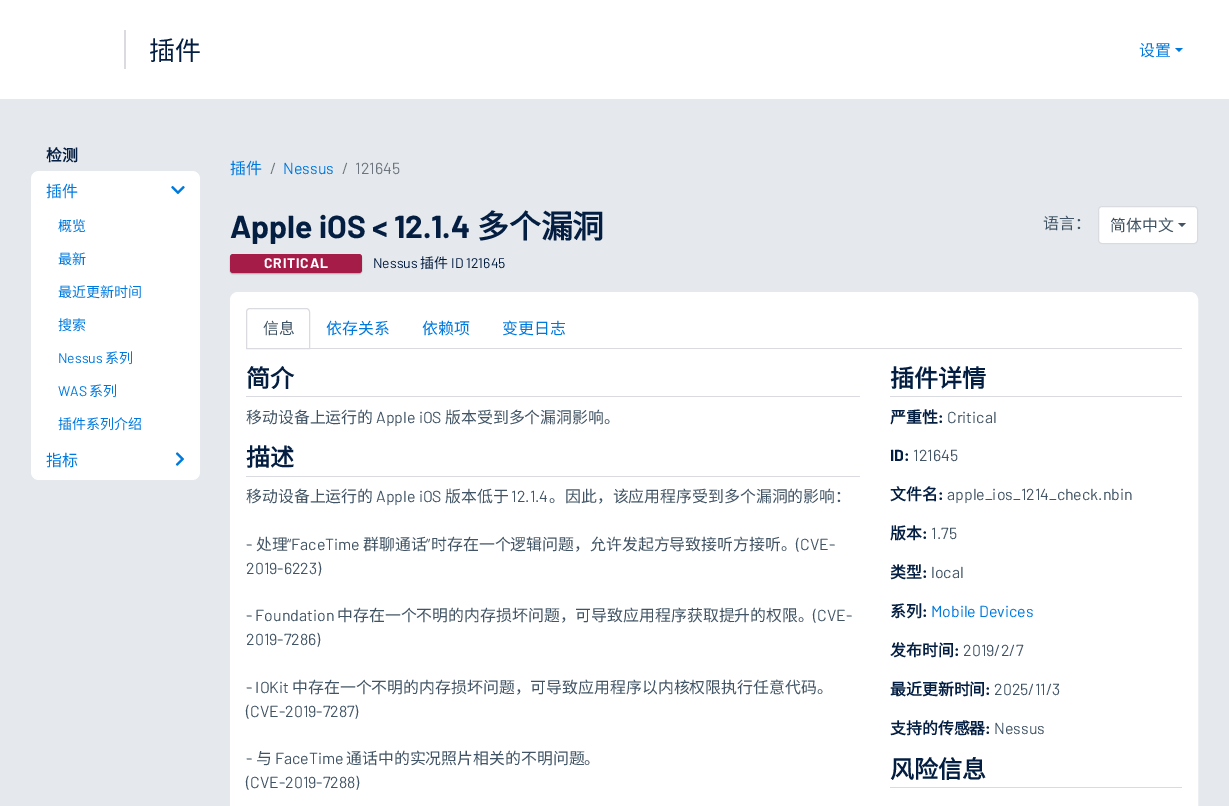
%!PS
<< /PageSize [1229 806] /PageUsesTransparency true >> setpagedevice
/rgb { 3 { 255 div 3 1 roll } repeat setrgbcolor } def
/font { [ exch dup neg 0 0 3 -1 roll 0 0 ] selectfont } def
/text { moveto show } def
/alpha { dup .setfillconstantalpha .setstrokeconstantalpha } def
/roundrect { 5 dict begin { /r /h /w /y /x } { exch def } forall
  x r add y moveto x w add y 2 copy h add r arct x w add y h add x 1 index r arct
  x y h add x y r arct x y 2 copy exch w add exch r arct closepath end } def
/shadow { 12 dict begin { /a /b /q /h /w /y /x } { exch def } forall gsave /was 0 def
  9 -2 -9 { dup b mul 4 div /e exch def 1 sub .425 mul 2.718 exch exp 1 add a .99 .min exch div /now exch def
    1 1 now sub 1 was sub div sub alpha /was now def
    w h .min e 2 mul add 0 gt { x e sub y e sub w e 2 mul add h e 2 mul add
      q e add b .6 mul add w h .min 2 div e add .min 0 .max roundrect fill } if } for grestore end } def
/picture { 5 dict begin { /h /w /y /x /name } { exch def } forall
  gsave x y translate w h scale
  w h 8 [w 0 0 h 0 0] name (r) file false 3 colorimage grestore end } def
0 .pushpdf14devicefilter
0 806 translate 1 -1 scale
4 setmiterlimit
255 255 255 rgb
0 0 1229 806 rectfill
217 219 224 rgb
124 30 2 39 rectfill
0 121 221 rgb
1175 48 moveto 8 0 rlineto -4 4 rlineto closepath fill
229 233 237 rgb
0 99 1229 707 rectfill
255 255 255 rgb
31 171 169 309 8 roundrect fill
(img_01.rgb) 171 186 14 9 picture
(img_02.rgb) 175 452 9 14 picture
0 0 0 rgb
230 255 132 19 3 0.5 0.25 shadow
165 28 73 rgb
230 254 132 19 3 roundrect fill
255 255 255 rgb
1098.5 206.5 99 37 3.5 roundrect gsave fill grestore
217 219 224 rgb
stroke
65 84 101 rgb
1178 223 moveto 8 0 rlineto -4 4 rlineto closepath fill
255 255 255 rgb
230.5 292.5 967 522 7.5 roundrect gsave fill grestore
stroke
217 219 224 rgb
310 348 872 1 rectfill
250 308.5 moveto 56 0 rlineto 2 0 3.5 1.5 3.5 3.5 rcurveto 0 36.5 rlineto -63 0 rlineto 0 -36.5 rlineto 0 -2 1.5 -3.5 3.5 -3.5 rcurveto closepath stroke
246 396 614 1 rectfill
246 476 614 1 rectfill
890 396 292 1 rectfill
890 787 292 1 rectfill
/NotoSansCJKSC-Regular 26 font
4 30 66 rgb
(插件) 149 60 text
/NotoSansCJKSC-Regular 15.9 font
0 121 221 rgb
(设置) 1139 56 text
/NotoSansCJKSC-Bold 15.9 font
4 30 66 rgb
(检测) 46 161 text
/NotoSansCJKSC-Regular 15.9 font
0 121 221 rgb
(插件) 46 197 text
/NotoSansCJKSC-Regular 14 font
(概览) 58 231 text
(最新) 58 264 text
(最近更新时间) 58 297 text
(搜索) 58 330 text
/Barlow-Regular 14 font
(Nessus) 58 363 text
/NotoSansCJKSC-Regular 14 font
(系列) 105 363 text
/Barlow-Regular 14 font
(WAS) 58 396 text
/NotoSansCJKSC-Regular 14 font
(系列) 89 396 text
(插件系列介绍) 58 429 text
/NotoSansCJKSC-Regular 15.9 font
(指标) 46 466 text
(插件) 230 174 text
/Barlow-Regular 15.9 font
108 117 125 rgb
(/) 270 174 text
0 121 221 rgb
(Nessus) 283 174 text
108 117 125 rgb
(/) 342 174 text
(121645) 355 174 text
/Barlow-Bold 31.75 font
4 30 66 rgb
(Apple iOS < 12.1.4) 230 238 text
/NotoSansCJKSC-Bold 31.75 font
(多个漏洞) 477 238 text
/Barlow-Bold 14 font
255 255 255 rgb
264 268 moveto 0.75 0 (CRITICAL) ashow
/Barlow-Regular 14 font
4 30 66 rgb
(Nessus) 373 268 text
/NotoSansCJKSC-Regular 14 font
(插件) 420 268 text
/Barlow-Regular 14 font
(ID 121645) 451 268 text
/NotoSansCJKSC-Regular 15.9 font
65 84 101 rgb
(语言：) 1043 229 text
(简体中文) 1110 231 text
(信息) 263 334 text
0 121 221 rgb
(依存关系) 326 334 text
(依赖项) 422 334 text
(变更日志) 502 334 text
/NotoSansCJKSC-Bold 24 font
4 30 66 rgb
(简介) 246 387 text
/NotoSansCJKSC-Regular 15.9 font
65 84 101 rgb
(移动设备上运行的) 246 423 text
/Barlow-Regular 15.9 font
(Apple iOS) 376 423 text
/NotoSansCJKSC-Regular 15.9 font
(版本受到多个漏洞影响。) 445 423 text
/NotoSansCJKSC-Bold 24 font
4 30 66 rgb
(描述) 246 466 text
/NotoSansCJKSC-Regular 15.9 font
65 84 101 rgb
(移动设备上运行的) 246 502 text
/Barlow-Regular 15.9 font
(Apple iOS) 376 502 text
/NotoSansCJKSC-Regular 15.9 font
(版本低于) 445 502 text
/Barlow-Regular 15.9 font
(12.1.4) 511 502 text
/NotoSansCJKSC-Regular 15.9 font
(。因此，该应用程序受到多个漏洞的影响：) 549 502 text
(处理) 256 550 text
/Barlow-Regular 15.9 font
(“FaceTime) 287 550 text
/NotoSansCJKSC-Regular 15.9 font
(群聊通话) 363 550 text
/Barlow-Regular 15.9 font
(”) 426 550 text
/NotoSansCJKSC-Regular 15.9 font
(时存在一个逻辑问题，允许发起方导致接听方接听。) 431 550 text
/Barlow-Regular 15.9 font
(\(CVE-) 796 550 text
(-) 246 550 text
(2019-6223\)) 246 574 text
(- Foundation) 246 621 text
/NotoSansCJKSC-Regular 15.9 font
(中存在一个不明的内存损坏问题，可导致应用程序获取提升的权限。) 337 621 text
/Barlow-Regular 15.9 font
(\(CVE-) 813 621 text
(2019-7286\)) 246 645 text
(- IOKit) 246 693 text
/NotoSansCJKSC-Regular 15.9 font
(中存在一个不明的内存损坏问题，可导致应用程序以内核权限执行任意代码。) 292 693 text
/Barlow-Regular 15.9 font
(\(CVE-2019-7287\)) 246 717 text
(-) 246 764 text
/NotoSansCJKSC-Regular 15.9 font
(与) 256 764 text
/Barlow-Regular 15.9 font
(FaceTime) 275 764 text
/NotoSansCJKSC-Regular 15.9 font
(通话中的实况照片相关的不明问题。) 346 764 text
/Barlow-Regular 15.9 font
(\(CVE-2019-7288\)) 246 788 text
/NotoSansCJKSC-Bold 24 font
4 30 66 rgb
(插件详情) 890 387 text
/NotoSansCJKSC-Bold 15.9 font
(严重性) 890 423 text
/Barlow-Bold 15.9 font
(:) 938 423 text
/Barlow-Regular 15.9 font
65 84 101 rgb
(Critical) 947 423 text
/Barlow-Bold 15.9 font
4 30 66 rgb
(ID:) 890 461 text
/Barlow-Regular 15.9 font
65 84 101 rgb
(121645) 913 461 text
/NotoSansCJKSC-Bold 15.9 font
4 30 66 rgb
(文件名) 890 500 text
/Barlow-Bold 15.9 font
(:) 938 500 text
/Barlow-Regular 15.9 font
65 84 101 rgb
(apple_ios_1214_check.nbin) 947 500 text
/NotoSansCJKSC-Bold 15.9 font
4 30 66 rgb
(版本) 890 539 text
/Barlow-Bold 15.9 font
(:) 922 539 text
/Barlow-Regular 15.9 font
65 84 101 rgb
(1.75) 931 539 text
/NotoSansCJKSC-Bold 15.9 font
4 30 66 rgb
(类型) 890 578 text
/Barlow-Bold 15.9 font
(:) 922 578 text
/Barlow-Regular 15.9 font
65 84 101 rgb
(local) 931 578 text
/NotoSansCJKSC-Bold 15.9 font
4 30 66 rgb
(系列) 890 617 text
/Barlow-Bold 15.9 font
(:) 922 617 text
/Barlow-Regular 15.9 font
0 121 221 rgb
(Mobile Devices) 931 617 text
/NotoSansCJKSC-Bold 15.9 font
4 30 66 rgb
(发布时间) 890 656 text
/Barlow-Bold 15.9 font
(:) 954 656 text
/Barlow-Regular 15.9 font
65 84 101 rgb
(2019/2/7) 963 656 text
/NotoSansCJKSC-Bold 15.9 font
4 30 66 rgb
(最近更新时间) 890 695 text
/Barlow-Bold 15.9 font
(:) 985 695 text
/Barlow-Regular 15.9 font
65 84 101 rgb
(2025/11/3) 994 695 text
/NotoSansCJKSC-Bold 15.9 font
4 30 66 rgb
(支持的传感器) 890 734 text
/Barlow-Bold 15.9 font
(:) 985 734 text
/Barlow-Regular 15.9 font
65 84 101 rgb
(Nessus) 994 734 text
/NotoSansCJKSC-Bold 24 font
4 30 66 rgb
(风险信息) 890 778 text
.poppdf14devicefilter showpage
